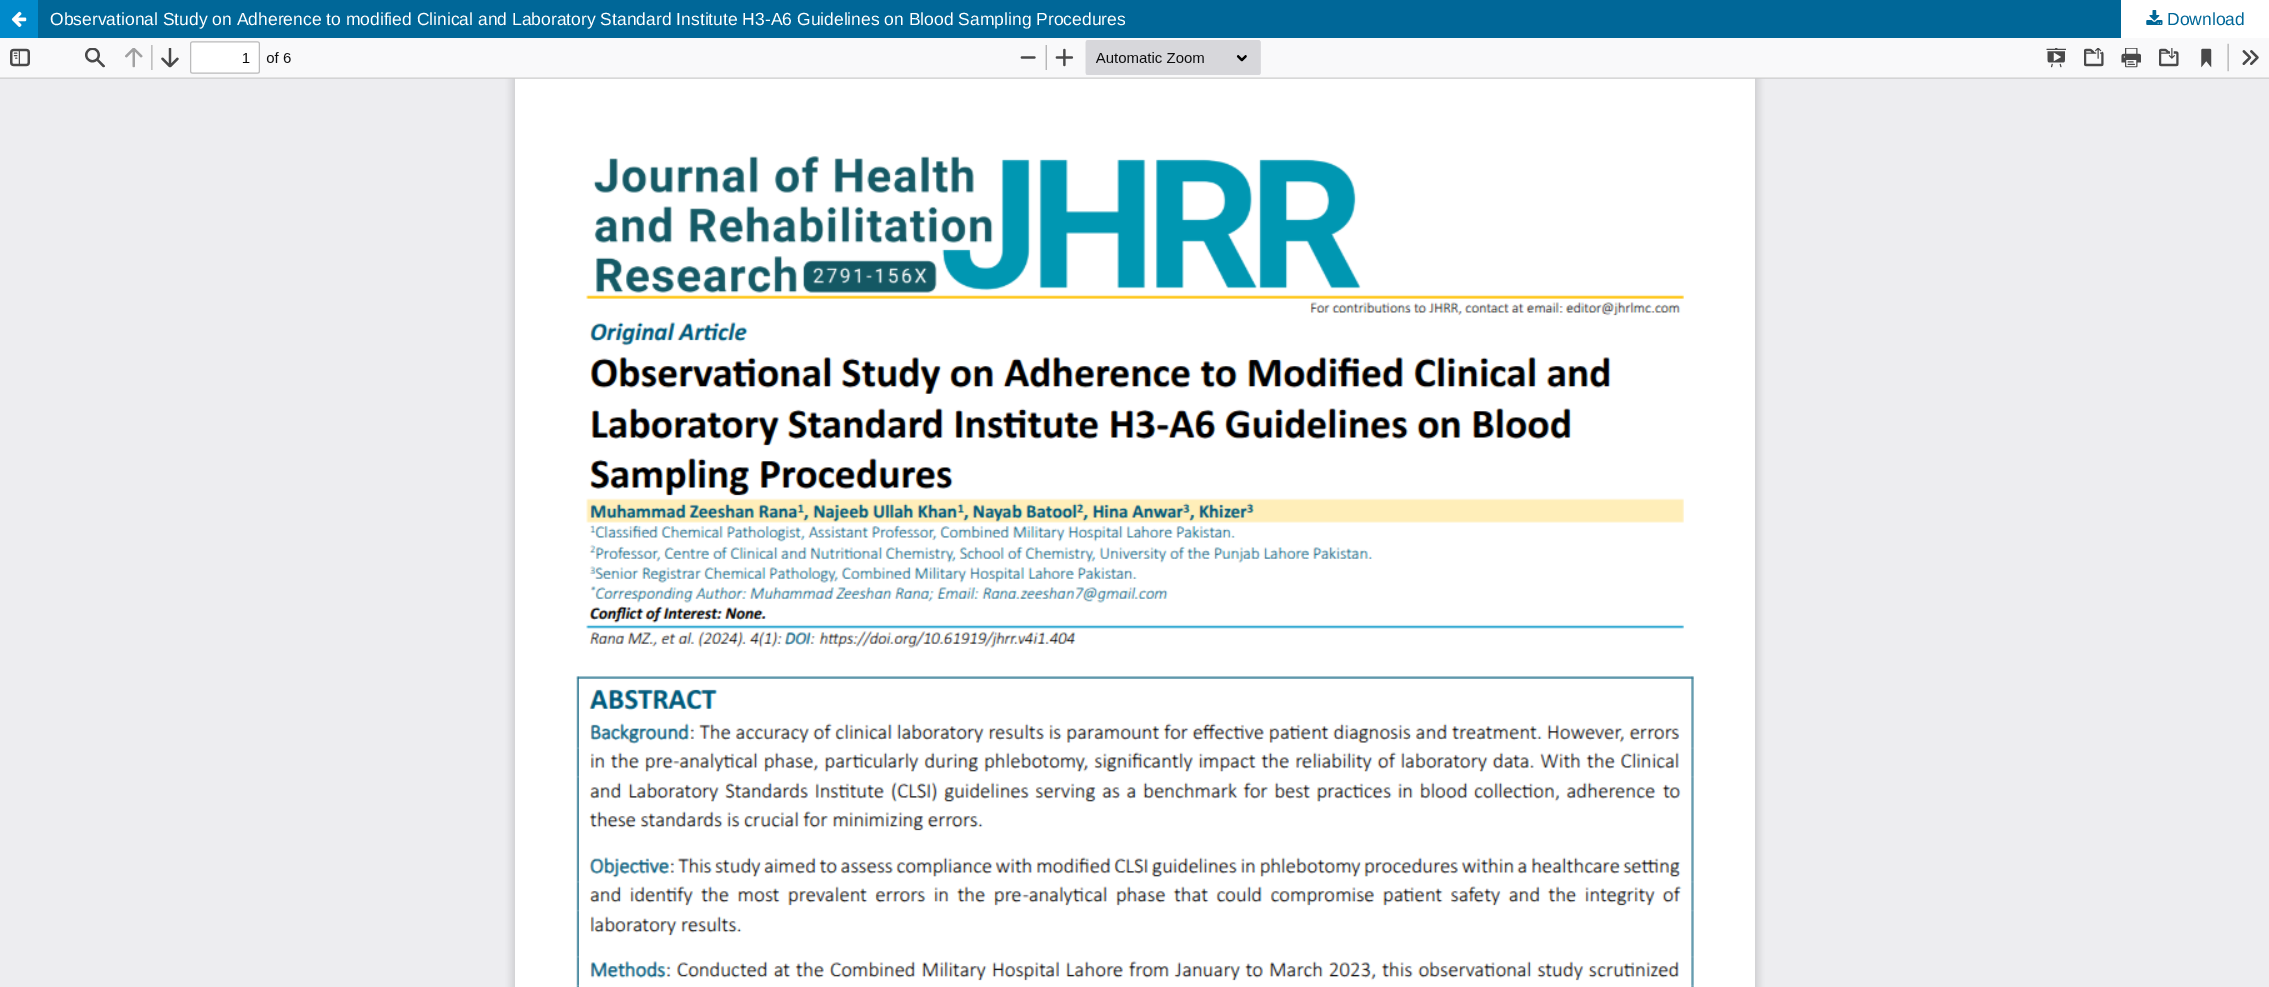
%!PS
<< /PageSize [2269 987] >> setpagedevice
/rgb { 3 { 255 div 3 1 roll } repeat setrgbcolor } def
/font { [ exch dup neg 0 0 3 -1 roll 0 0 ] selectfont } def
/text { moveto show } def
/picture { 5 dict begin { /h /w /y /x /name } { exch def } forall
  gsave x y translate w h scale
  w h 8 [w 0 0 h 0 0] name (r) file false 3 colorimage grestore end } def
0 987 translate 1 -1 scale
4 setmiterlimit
255 255 255 rgb
0 0 2269 987 rectfill
0 103 152 rgb
38 0 2083 38 rectfill
0 138 203 rgb
0 0 38 38 rectfill
(img_01.rgb) 11 11 16 16 picture
(img_02.rgb) 2146 10 17 15 picture
(img_03.rgb) 0 38 2269 949 picture
/LiberationSans-Regular 17.5 font
255 255 255 rgb
(Observational Study on Adherence to modified Clinical and Laboratory Standard Institute H3-A6 Guidelines on Blood Sampling Procedures) 50 25 text
0 103 152 rgb
(Download) 2167 25 text
showpage
